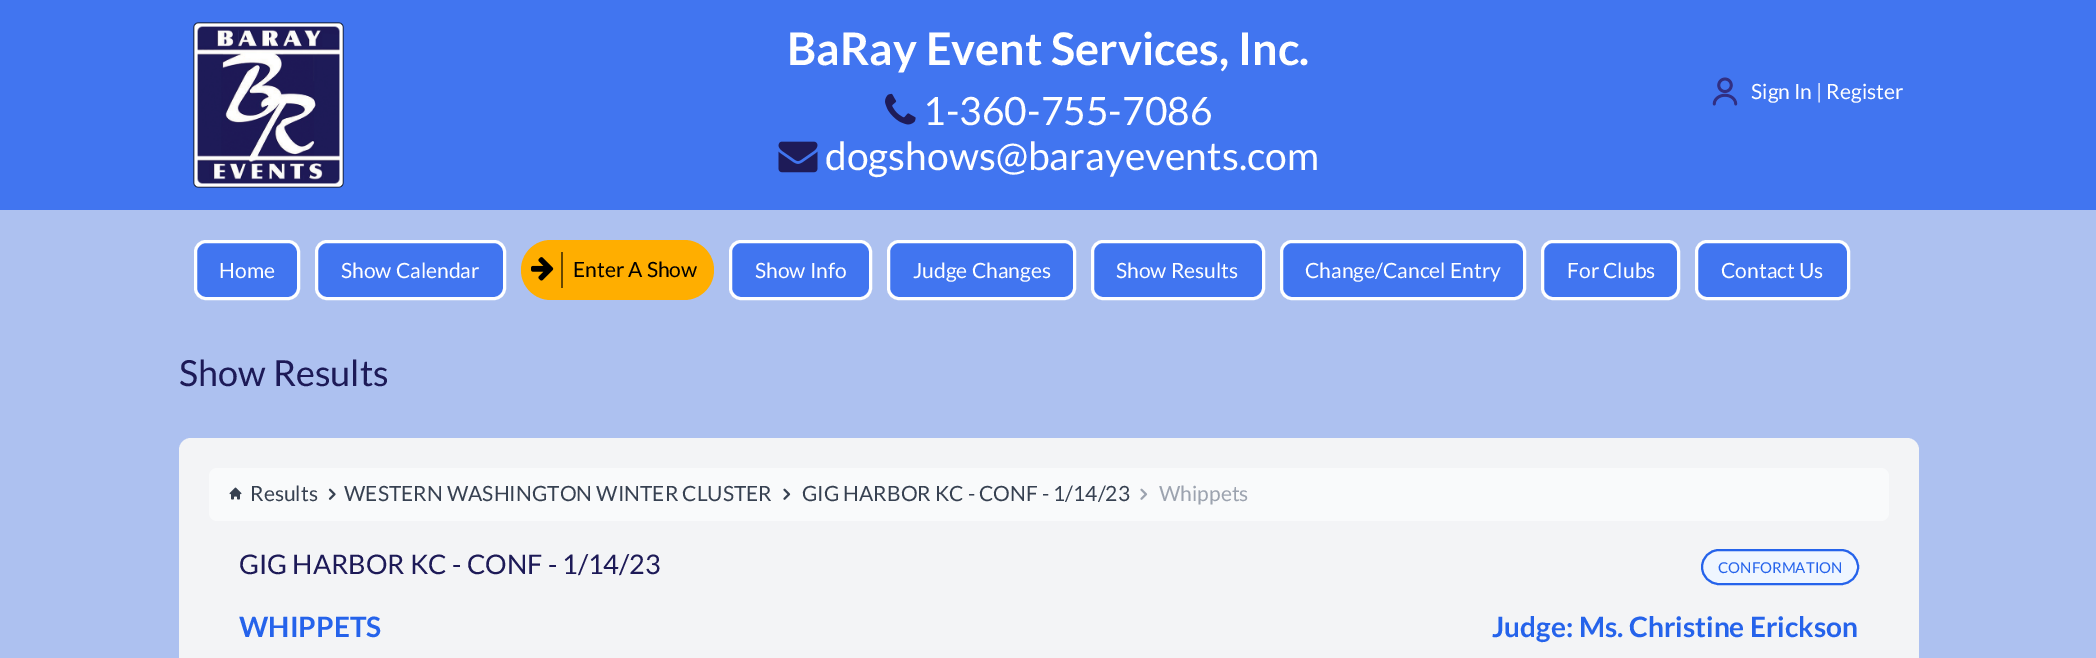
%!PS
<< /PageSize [2096 658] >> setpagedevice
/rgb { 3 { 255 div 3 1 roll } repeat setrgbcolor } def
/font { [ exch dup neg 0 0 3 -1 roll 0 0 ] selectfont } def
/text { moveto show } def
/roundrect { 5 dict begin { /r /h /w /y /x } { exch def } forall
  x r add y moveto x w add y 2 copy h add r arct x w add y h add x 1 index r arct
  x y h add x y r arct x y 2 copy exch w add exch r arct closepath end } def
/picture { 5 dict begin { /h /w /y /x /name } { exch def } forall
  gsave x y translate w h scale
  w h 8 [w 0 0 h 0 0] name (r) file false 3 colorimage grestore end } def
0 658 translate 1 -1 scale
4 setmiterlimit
173 193 240 rgb
0 0 2096 658 rectfill
65 117 240 rgb
0 0 2096 210 rectfill
(img_01.rgb) 193 22 151 166 picture
(img_02.rgb) 885 93 31 32 picture
(img_03.rgb) 778 141 40 32 picture
(img_04.rgb) 1712 77 26 29 picture
195.5 241.5 103 57 10.5 roundrect gsave fill grestore
255 255 255 rgb
3 setlinewidth
stroke
65 117 240 rgb
316.5 241.5 188 57 10.5 roundrect gsave fill grestore
255 255 255 rgb
stroke
255 174 0 rgb
521 240 193 60 30 roundrect fill
(img_05.rgb) 531 257 23 24 picture
102 70 0 rgb
561 252 2 36 rectfill
65 117 240 rgb
730.5 241.5 140 57 10.5 roundrect gsave fill grestore
255 255 255 rgb
stroke
65 117 240 rgb
888.5 241.5 186 57 10.5 roundrect gsave fill grestore
255 255 255 rgb
stroke
65 117 240 rgb
1092.5 241.5 171 57 10.5 roundrect gsave fill grestore
255 255 255 rgb
stroke
65 117 240 rgb
1281.5 241.5 243 57 10.5 roundrect gsave fill grestore
255 255 255 rgb
stroke
65 117 240 rgb
1542.5 241.5 136 57 10.5 roundrect gsave fill grestore
255 255 255 rgb
stroke
65 117 240 rgb
1696.5 241.5 152 57 10.5 roundrect gsave fill grestore
255 255 255 rgb
stroke
243 244 246 rgb
179 438 1740 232 12 roundrect fill
249 250 251 rgb
209 468 1680 53 8 roundrect fill
(img_06.rgb) 229 487 13 13 picture
(img_07.rgb) 328 488 8 12 picture
(img_08.rgb) 783 488 8 12 picture
(img_09.rgb) 1140 488 8 12 picture
239 246 255 rgb
1702 550 156 34 17 roundrect gsave fill grestore
37 99 235 rgb
2 setlinewidth
stroke
/Lato-Bold 45 font
255 255 255 rgb
(BaRay Event Services, Inc.) 787 65 text
/Lato-Regular 39 font
(1-360-755-7086) 923 125 text
(dogshows@barayevents.com) 825 170 text
/Lato-Regular 21 font
(Sign In | Register) 1751 99 text
(Home) 219 278 text
(Show Calendar) 341 278 text
0 0 0 rgb
(Enter A Show) 573 277 text
255 255 255 rgb
(Show Info) 755 278 text
(Judge Changes) 913 278 text
(Show Results) 1116 278 text
(Change/Cancel Entry) 1305 278 text
(For Clubs) 1567 278 text
(Contact Us) 1721 278 text
/Lato-Regular 36 font
29 26 87 rgb
(Show Results) 179 386 text
/Lato-Regular 21 font
55 65 81 rgb
(Results) 250 501 text
(WESTERN WASHINGTON WINTER CLUSTER) 344 501 text
(GIG HARBOR KC - CONF - 1/14/23) 802 501 text
156 163 175 rgb
(Whippets) 1159 501 text
/Lato-Regular 27 font
29 26 87 rgb
(GIG HARBOR KC - CONF - 1/14/23) 239 574 text
/Lato-Regular 15 font
37 99 235 rgb
(CONFORMATION) 1718 573 text
/Lato-Bold 28.1 font
(WHIPPETS) 239 637 text
(Judge: Ms. Christine Erickson) 1492 637 text
showpage
